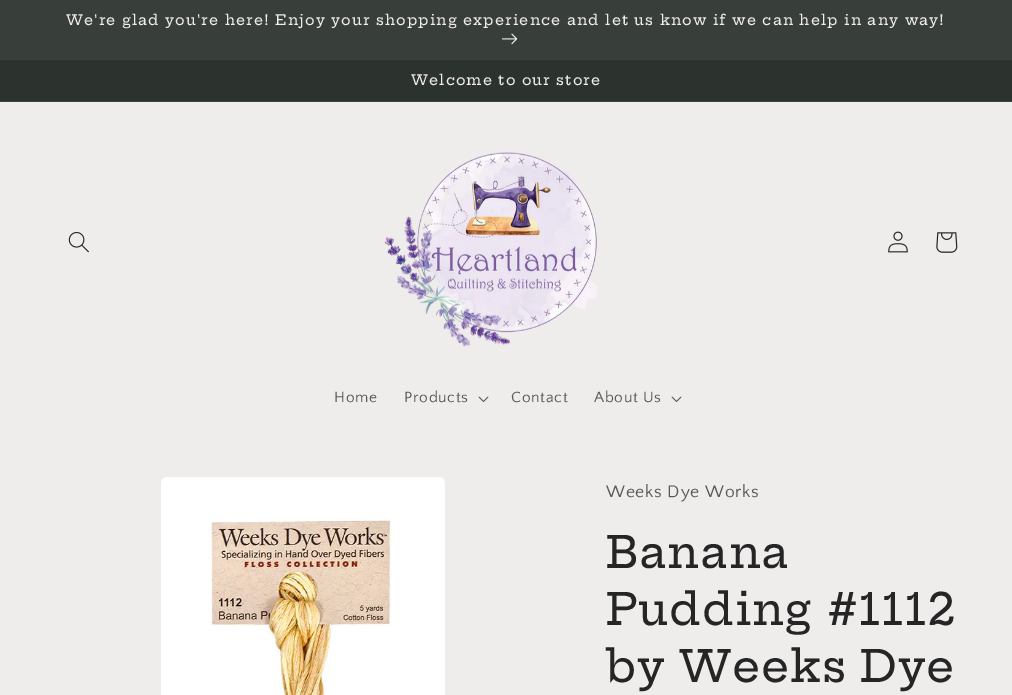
%!PS
<< /PageSize [1012 695] >> setpagedevice
/rgb { 3 { 255 div 3 1 roll } repeat setrgbcolor } def
/font { [ exch dup neg 0 0 3 -1 roll 0 0 ] selectfont } def
/picture { 5 dict begin { /h /w /y /x /name } { exch def } forall
  gsave x y translate w h scale
  w h 8 [w 0 0 h 0 0] name (r) file false 3 colorimage grestore end } def
0 695 translate 1 -1 scale
4 setmiterlimit
239 236 236 rgb
0 0 1012 695 rectfill
60 66 62 rgb
0 59 1012 1 rectfill
56 62 58 rgb
0 0 1012 59 rectfill
(img_01.rgb) 502 33 16 12 picture
44 51 47 rgb
0 60 1012 41 rectfill
60 66 62 rgb
0 101 1012 1 rectfill
(img_02.rgb) 68 231 21 22 picture
(img_03.rgb) 384 152 214 195 picture
(img_04.rgb) 888 231 20 22 picture
(img_05.rgb) 936 232 22 21 picture
(img_06.rgb) 478 396 11 6 picture
(img_06.rgb) 671 396 11 6 picture
(img_07.rgb) 161 477 284 218 picture
/HeptaSlab-Medium 14.3 font
239 236 236 rgb
66 25 moveto 1.1 0 (We're glad you're here! Enjoy your shopping experience and let us know if we can help in any way!) ashow
411 85 moveto 1.1 0 (Welcome to our store) ashow
/QuattrocentoSans-Regular 15.5 font
88 87 87 rgb
334 402 moveto 0.7 0 (Home) ashow
404 402 moveto 0.7 0 (Products) ashow
511 402 moveto 0.7 0 (Contact) ashow
594 402 moveto 0.7 0 (About Us) ashow
/QuattrocentoSans-Regular 17.5 font
606 497 moveto 0.7 0 (Weeks Dye Works) ashow
/HeptaSlab-Medium 44 font
37 37 37 rgb
606 568 moveto 0.7 0 (Banana) ashow
606 625 moveto 0.7 0 (Pudding #1112) ashow
606 682 moveto 0.7 0 (by Weeks Dye) ashow
showpage
